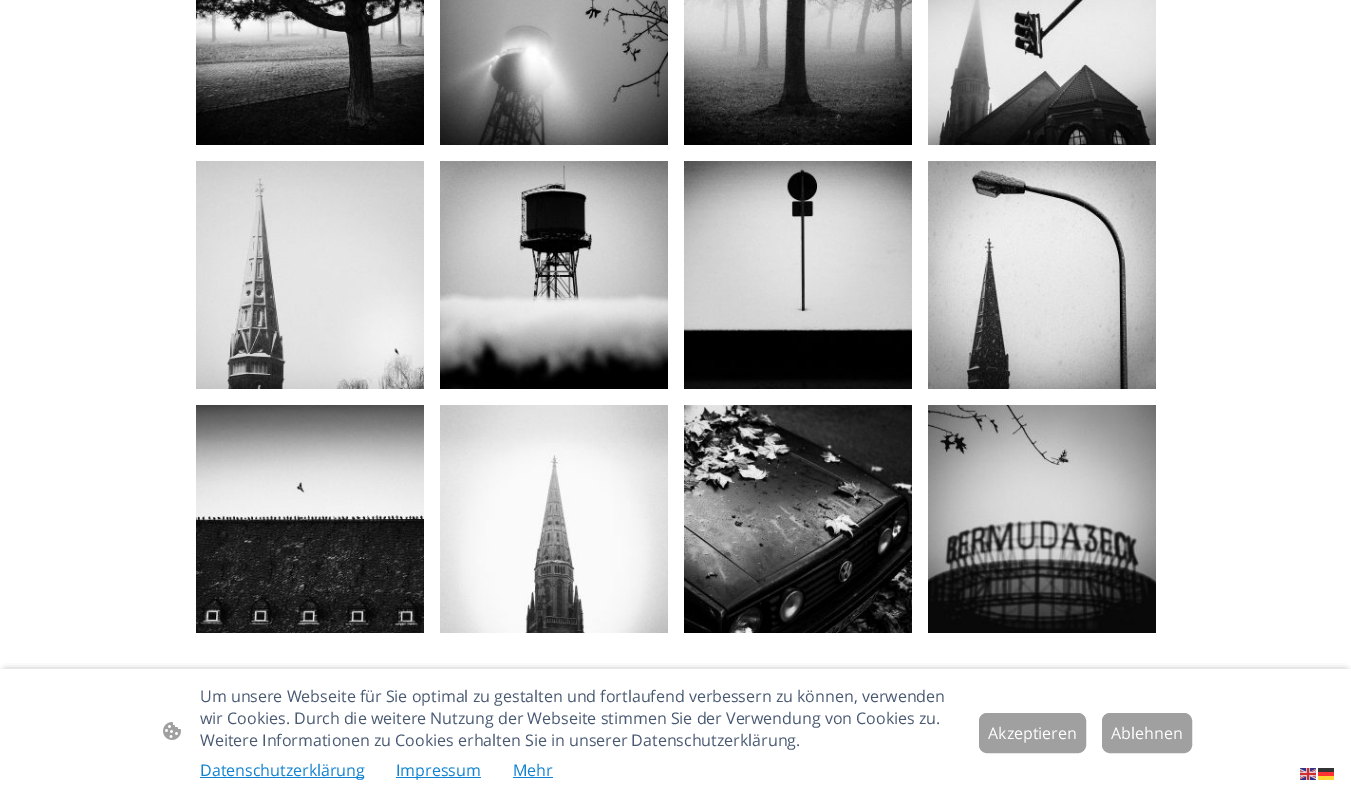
%!PS
<< /PageSize [1351 797] /PageUsesTransparency true >> setpagedevice
/rgb { 3 { 255 div 3 1 roll } repeat setrgbcolor } def
/font { [ exch dup neg 0 0 3 -1 roll 0 0 ] selectfont } def
/text { moveto show } def
/alpha { dup .setfillconstantalpha .setstrokeconstantalpha } def
/roundrect { 5 dict begin { /r /h /w /y /x } { exch def } forall
  x r add y moveto x w add y 2 copy h add r arct x w add y h add x 1 index r arct
  x y h add x y r arct x y 2 copy exch w add exch r arct closepath end } def
/shadow { 12 dict begin { /a /b /q /h /w /y /x } { exch def } forall gsave /was 0 def
  9 -2 -9 { dup b mul 4 div /e exch def 1 sub .425 mul 2.718 exch exp 1 add a .99 .min exch div /now exch def
    1 1 now sub 1 was sub div sub alpha /was now def
    w h .min e 2 mul add 0 gt { x e sub y e sub w e 2 mul add h e 2 mul add
      q e add b .6 mul add w h .min 2 div e add .min 0 .max roundrect fill } if } for grestore end } def
/picture { 5 dict begin { /h /w /y /x /name } { exch def } forall
  gsave x y translate w h scale
  w h 8 [w 0 0 h 0 0] name (r) file false 3 colorimage grestore end } def
0 .pushpdf14devicefilter
0 797 translate 1 -1 scale
4 setmiterlimit
255 255 255 rgb
0 0 1351 797 rectfill
(img_01.rgb) 196 0 228 145 picture
(img_02.rgb) 440 0 228 145 picture
(img_03.rgb) 684 0 228 145 picture
(img_04.rgb) 928 0 228 145 picture
(img_05.rgb) 196 161 228 228 picture
(img_06.rgb) 440 161 228 228 picture
(img_07.rgb) 684 161 228 228 picture
(img_08.rgb) 928 161 228 228 picture
(img_09.rgb) 196 405 228 228 picture
(img_10.rgb) 440 405 228 228 picture
(img_11.rgb) 684 405 228 228 picture
(img_12.rgb) 928 405 228 228 picture
0 0 0 rgb
6 672 1339 116 0 4 0.63 shadow
255 255 255 rgb
0 669 1351 128 rectfill
(img_13.rgb) 163 722 18 18 picture
17 131 209 rgb
200 777 164 1 rectfill
396 777 85 1 rectfill
513 777 40 1 rectfill
160 160 160 rgb
979.5 713.5 106 39 7.5 roundrect gsave fill grestore
stroke
1102.5 713.5 89 39 7.5 roundrect gsave fill grestore
stroke
(img_14.rgb) 1300 768 16 12 picture
51 51 51 rgb
1318 768 16 4 rectfill
255 51 51 rgb
1318 772 16 4 rectfill
255 214 51 rgb
1318 776 16 4 rectfill
/OpenSans-Regular 16 font
74 90 115 rgb
(Um unsere Webseite für Sie optimal zu gestalten und fortlaufend verbessern zu können, verwenden) 200 702 text
(wir Cookies. Durch die weitere Nutzung der Webseite stimmen Sie der Verwendung von Cookies zu.) 200 724 text
(Weitere Informationen zu Cookies erhalten Sie in unserer Datenschutzerklärung.) 200 746 text
17 131 209 rgb
(Datenschutzerklärung) 200 776 text
(Impressum) 396 776 text
(Mehr) 513 776 text
255 255 255 rgb
(Akzeptieren) 988 739 text
(Ablehnen) 1111 739 text
.poppdf14devicefilter showpage
